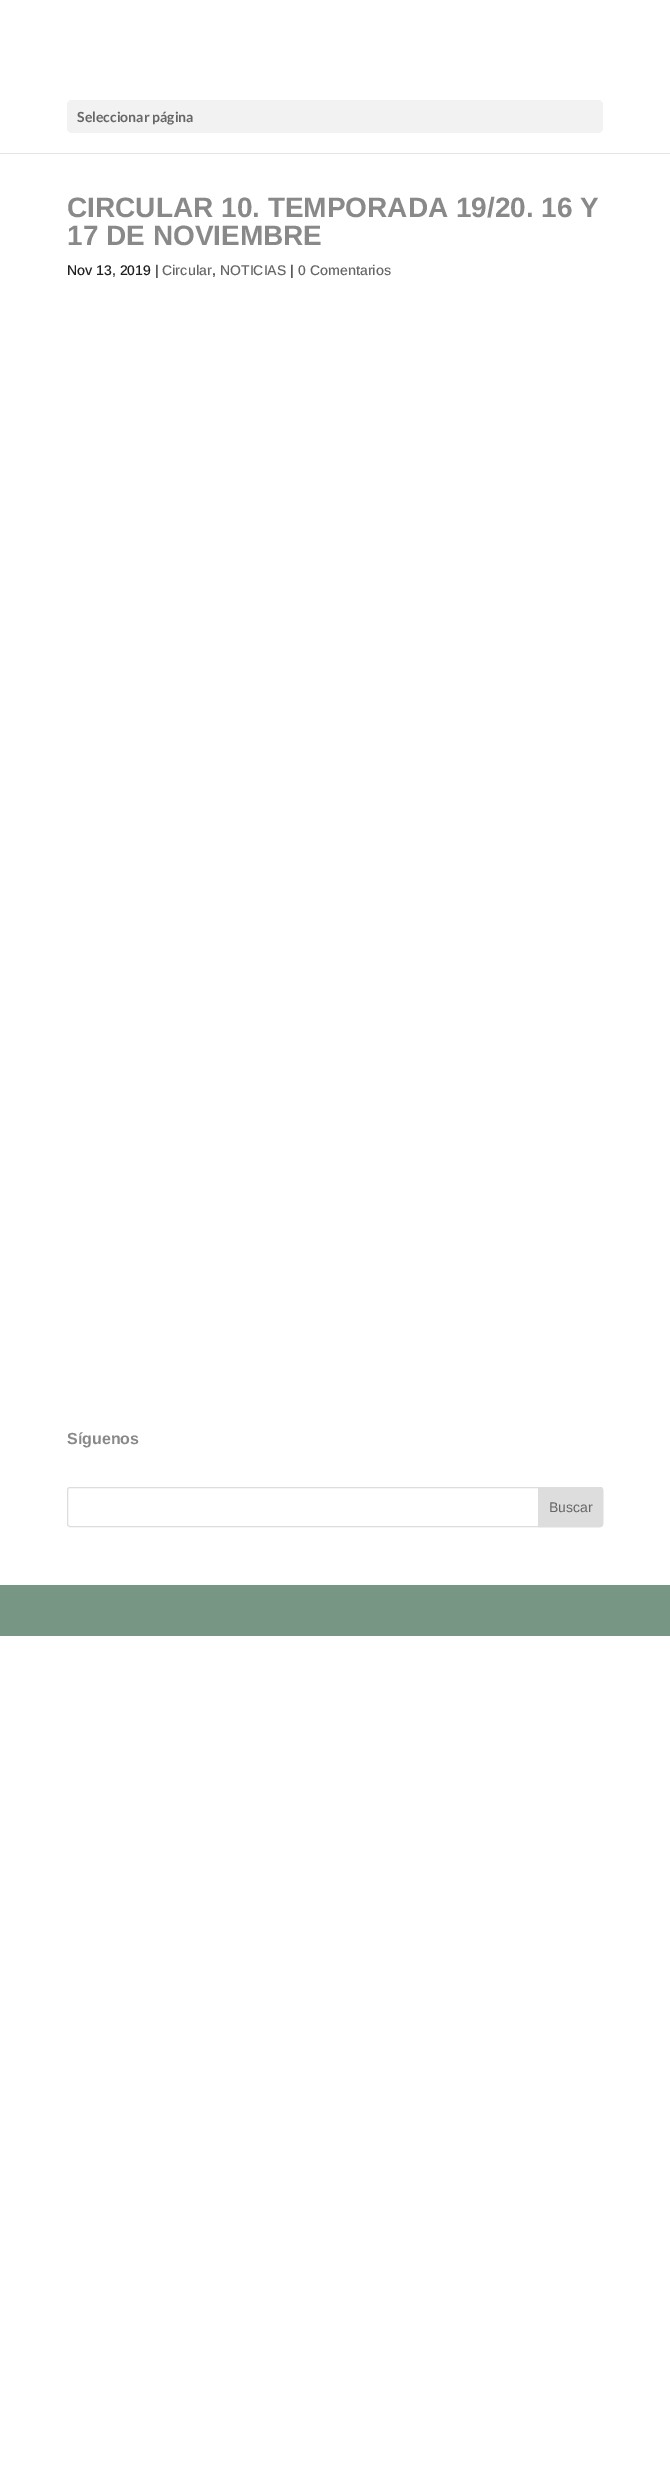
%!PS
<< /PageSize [670 2474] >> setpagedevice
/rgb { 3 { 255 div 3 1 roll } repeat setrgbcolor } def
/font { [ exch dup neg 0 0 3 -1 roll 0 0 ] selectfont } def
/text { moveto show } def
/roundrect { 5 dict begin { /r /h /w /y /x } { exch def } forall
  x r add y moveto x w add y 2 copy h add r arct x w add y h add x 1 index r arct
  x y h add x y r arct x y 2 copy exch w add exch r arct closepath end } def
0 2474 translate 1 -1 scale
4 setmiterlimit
255 255 255 rgb
0 0 670 2474 rectfill
230 230 230 rgb
0 153 670 1 rectfill
242 242 242 rgb
67 100 536 33 5 roundrect fill
221 221 221 rgb
67.5 1487.5 535 39 2.5 roundrect stroke
538.5 1487.5 moveto 61.5 0 rlineto 1.5 0 2.5 1 2.5 2.5 rcurveto 0 34 rlineto 0 1.5 -1 2.5 -2.5 2.5 rcurveto -61.5 0 rlineto closepath gsave fill grestore
stroke
119 150 131 rgb
0 1585 670 51 rectfill
/Lato-Bold 14 font
102 102 102 rgb
(Seleccionar página) 77 122 text
/Arimo-Bold 28 font
137 137 137 rgb
(CIRCULAR 10. TEMPORADA 19/20. 16 Y) 67 217 text
(17 DE NOVIEMBRE) 67 245 text
/Arimo-Medium 14 font
31 31 31 rgb
(Nov 13, 2019 |) 67 275 text
102 102 102 rgb
(Circular) 162 275 text
31 31 31 rgb
(,) 212 275 text
102 102 102 rgb
(NOTICIAS) 220 275 text
31 31 31 rgb
(|) 290 275 text
102 102 102 rgb
(0 Comentarios) 298 275 text
/Arimo-Bold 16 font
137 137 137 rgb
(Síguenos) 67 1444 text
/Arimo-Regular 14 font
102 102 102 rgb
(Buscar) 549 1512 text
showpage
